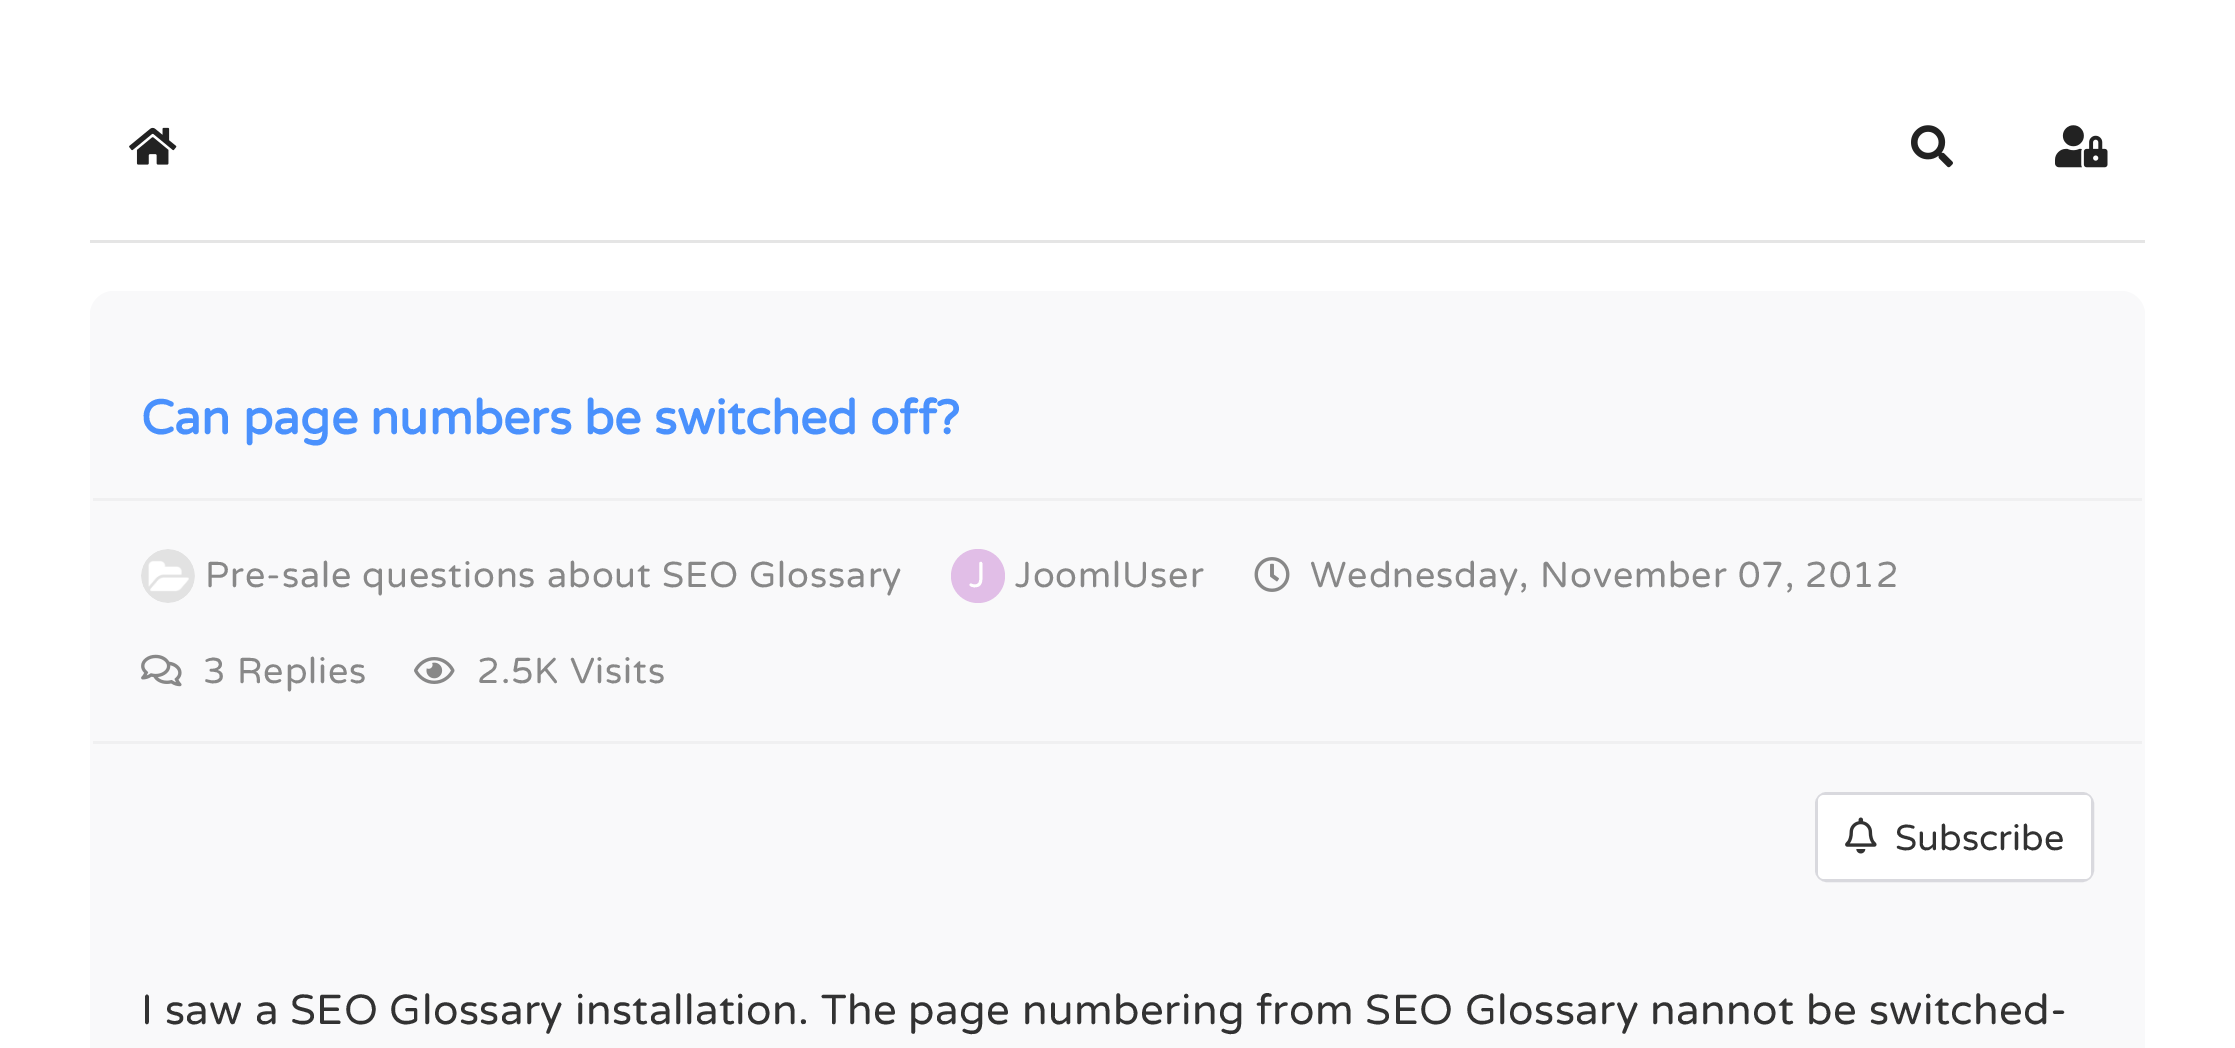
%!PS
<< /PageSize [2235 1048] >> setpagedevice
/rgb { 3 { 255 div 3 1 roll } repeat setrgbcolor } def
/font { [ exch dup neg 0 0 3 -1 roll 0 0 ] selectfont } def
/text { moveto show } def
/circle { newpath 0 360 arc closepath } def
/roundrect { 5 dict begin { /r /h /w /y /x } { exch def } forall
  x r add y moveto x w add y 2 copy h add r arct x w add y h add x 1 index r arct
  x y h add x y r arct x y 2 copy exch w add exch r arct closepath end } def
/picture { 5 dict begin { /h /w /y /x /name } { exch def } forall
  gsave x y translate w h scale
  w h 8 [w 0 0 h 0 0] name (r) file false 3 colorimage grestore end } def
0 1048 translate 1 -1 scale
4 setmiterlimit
255 255 255 rgb
0 0 2235 1048 rectfill
(img_01.rgb) 129 127 48 38 picture
(img_02.rgb) 1911 125 42 43 picture
(img_03.rgb) 2055 125 53 43 picture
229 229 229 rgb
90 240 2055 3 rectfill
249 249 250 rgb
90 291 2055 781 24 roundrect fill
240 240 241 rgb
93 498 2049 3 rectfill
(img_04.rgb) 141 549 54 54 picture
225 190 231 rgb
978 576 27 circle fill
(img_05.rgb) 1254 557 36 35 picture
(img_06.rgb) 141 654 41 33 picture
(img_07.rgb) 414 657 41 27 picture
240 240 241 rgb
93 741 2049 3 rectfill
217 217 222 rgb
3 setlinewidth
1816.5 793.5 276 87 10.5 roundrect stroke
255 255 255 rgb
1818 795 273 84 6 roundrect fill
(img_08.rgb) 1845 817 32 37 picture
/VarelaRound-Bold 48 font
74 145 253 rgb
(Can page numbers be switched off?) 141 434 text
/VarelaRound-Regular 36 font
136 136 136 rgb
205 587 moveto 0.9 0 (Pre-sale questions about SEO Glossary) ashow
255 255 255 rgb
969 587 moveto 0.9 0 (J) ashow
136 136 136 rgb
1015 587 moveto 0.9 0 (JoomlUser) ashow
1310 587 moveto 0.9 0 (Wednesday, November 07, 2012) ashow
203 683 moveto 0.9 0 (3 Replies) ashow
477 683 moveto 0.9 0 (2.5K Visits) ashow
50 50 50 rgb
(Subscribe) 1895 850 text
/VarelaRound-Regular 42 font
141 1024 moveto 0.45 0 (I saw a SEO Glossary installation. The page numbering from SEO Glossary nannot be switched-) ashow
showpage
